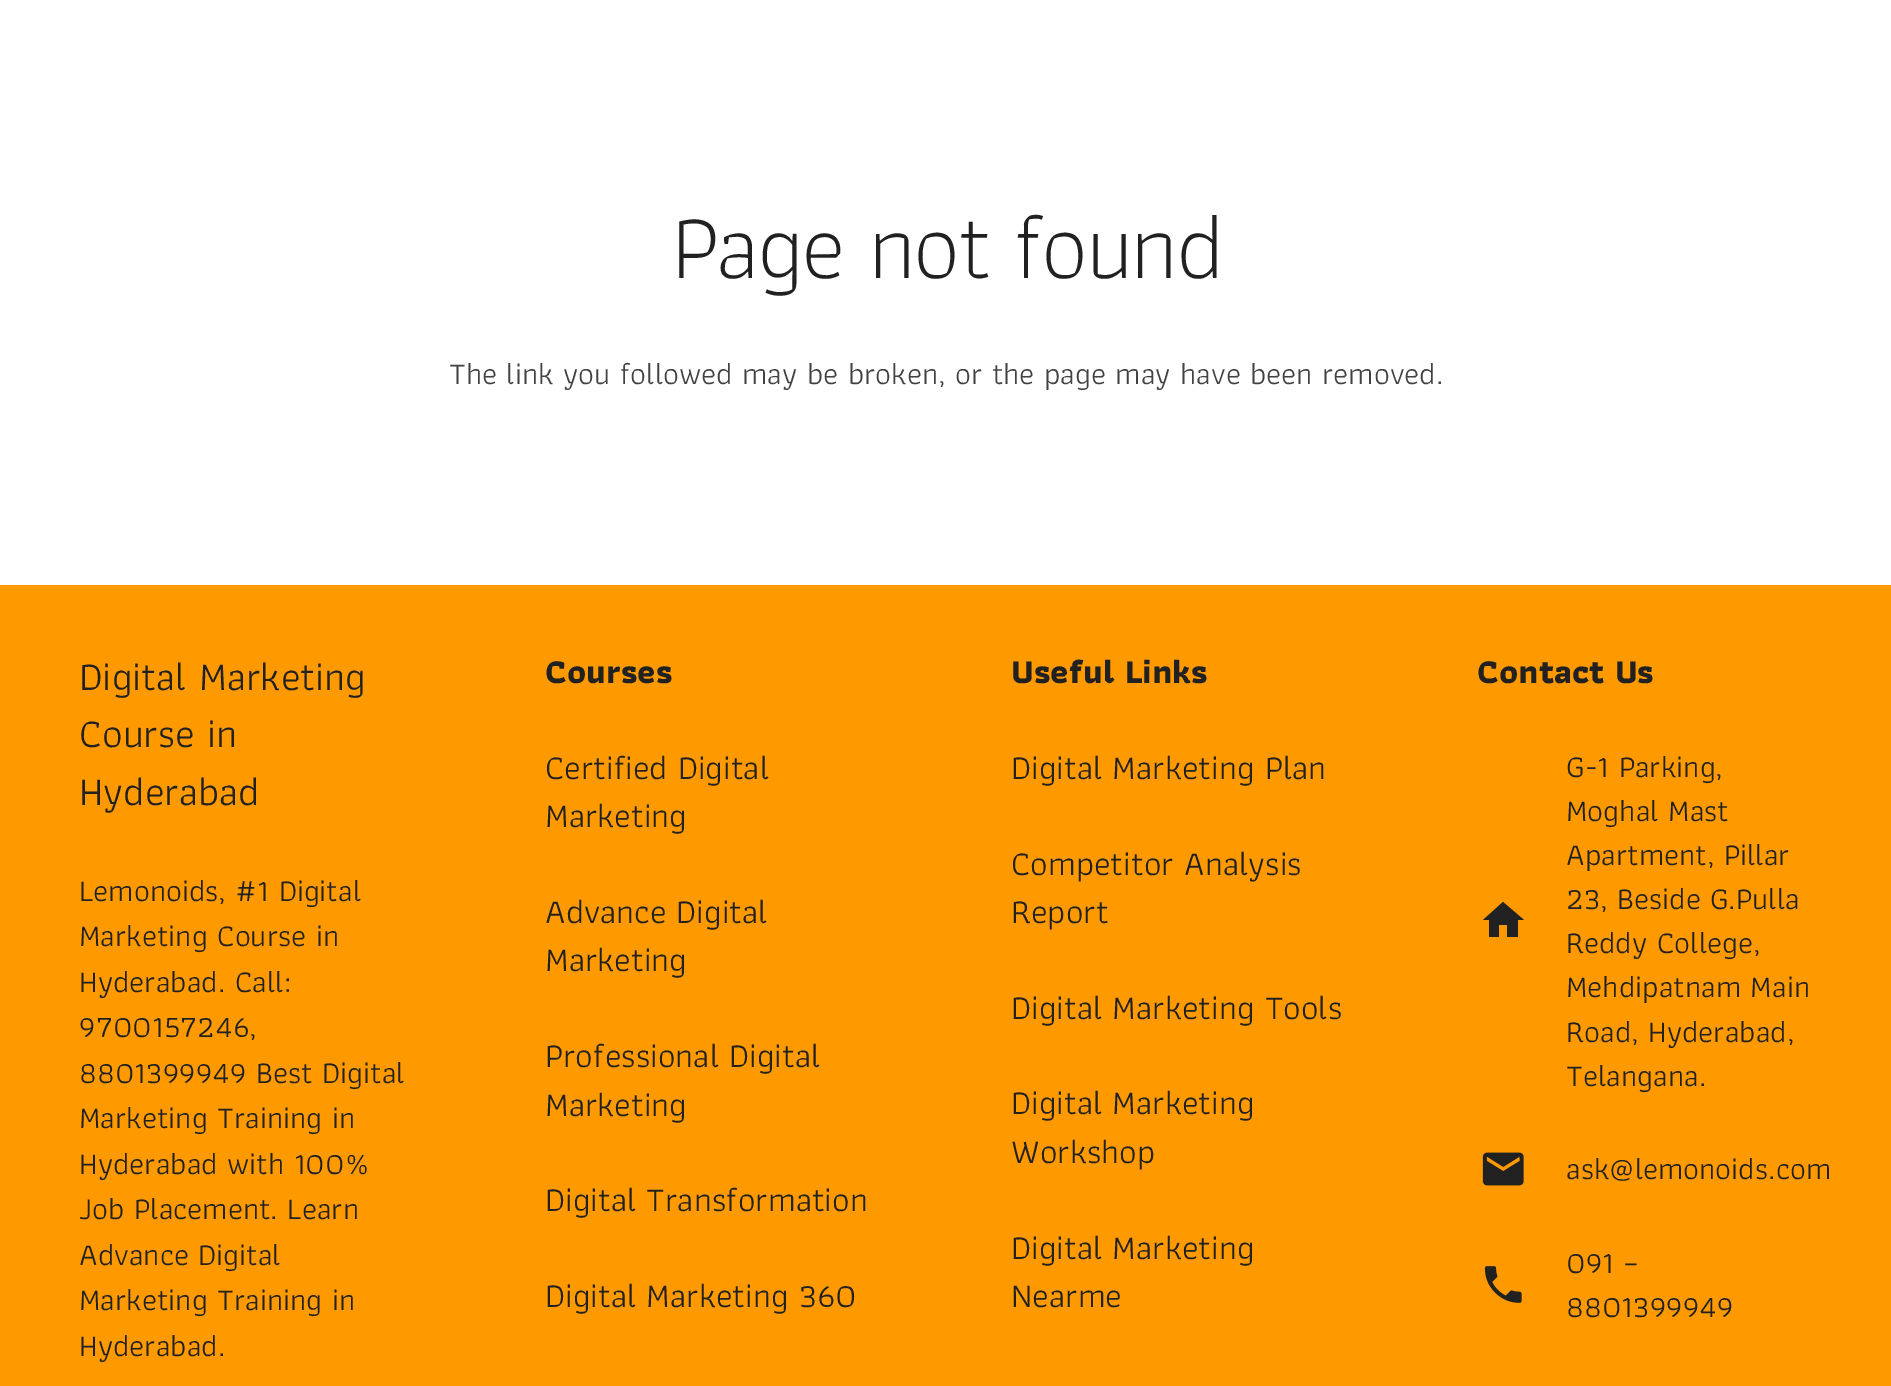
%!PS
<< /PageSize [1891 1386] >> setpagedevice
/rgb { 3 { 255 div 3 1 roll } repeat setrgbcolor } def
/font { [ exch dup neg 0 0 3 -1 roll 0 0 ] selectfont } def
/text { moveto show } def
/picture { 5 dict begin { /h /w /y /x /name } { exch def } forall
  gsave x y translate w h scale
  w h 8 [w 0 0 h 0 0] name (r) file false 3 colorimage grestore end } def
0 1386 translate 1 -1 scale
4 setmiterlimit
255 255 255 rgb
0 0 1891 1386 rectfill
255 153 0 rgb
0 585 1891 801 rectfill
33 33 33 rgb
1499 937 moveto -10 0 rlineto 0 -17 rlineto -6 0 rlineto 20 -18 rlineto 21 18 rlineto -6 0 rlineto 0 17 rlineto -11 0 rlineto 0 -12 rlineto -8 0 rlineto closepath fill
(img_01.rgb) 1482 1152 42 34 picture
(img_02.rgb) 1484 1266 38 37 picture
/Athiti-Light 94.5 font
671 278 moveto -2.8 0 (Page not found) ashow
/Athiti-Regular 31.5 font
66 66 66 rgb
(The link you followed may be broken, or the page may have been removed.) 449 384 text
/Athiti-Regular 41 font
33 33 33 rgb
(Digital Marketing) 79 690 text
(Course in) 79 747 text
(Hyderabad) 79 805 text
/Athiti-Regular 31.5 font
(Lemonoids, #1 Digital) 79 901 text
(Marketing Course in) 79 946 text
(Hyderabad. Call:) 79 992 text
(9700157246,) 79 1037 text
(8801399949 Best Digital) 79 1083 text
(Marketing Training in) 79 1128 text
(Hyderabad with 100%) 79 1174 text
(Job Placement. Learn) 79 1219 text
(Advance Digital) 79 1265 text
(Marketing Training in) 79 1310 text
(Hyderabad.) 79 1356 text
/Athiti-Bold 34.75 font
(Courses) 545 683 text
/Athiti-Regular 34.75 font
(Certified Digital) 545 779 text
(Marketing) 545 827 text
(Advance Digital) 545 923 text
(Marketing) 545 971 text
(Professional Digital) 545 1067 text
(Marketing) 545 1116 text
(Digital Transformation) 545 1211 text
(Digital Marketing 360) 545 1307 text
/Athiti-Bold 34.75 font
(Useful Links) 1011 683 text
/Athiti-Regular 34.75 font
(Digital Marketing Plan) 1011 779 text
(Competitor Analysis) 1011 875 text
(Report) 1011 923 text
(Digital Marketing Tools) 1011 1019 text
(Digital Marketing) 1011 1114 text
(Workshop) 1011 1163 text
(Digital Marketing) 1011 1259 text
(Nearme) 1011 1307 text
/Athiti-Bold 34.75 font
(Contact Us) 1477 683 text
/Athiti-Regular 31.5 font
(G-1 Parking,) 1566 777 text
(Moghal Mast) 1566 821 text
(Apartment, Pillar) 1566 865 text
(23, Beside G.Pulla) 1566 909 text
(Reddy College,) 1566 953 text
(Mehdipatnam Main) 1566 997 text
(Road, Hyderabad,) 1566 1042 text
(Telangana.) 1566 1086 text
(ask@lemonoids.com) 1566 1179 text
(091 –) 1566 1273 text
(8801399949) 1566 1317 text
showpage
